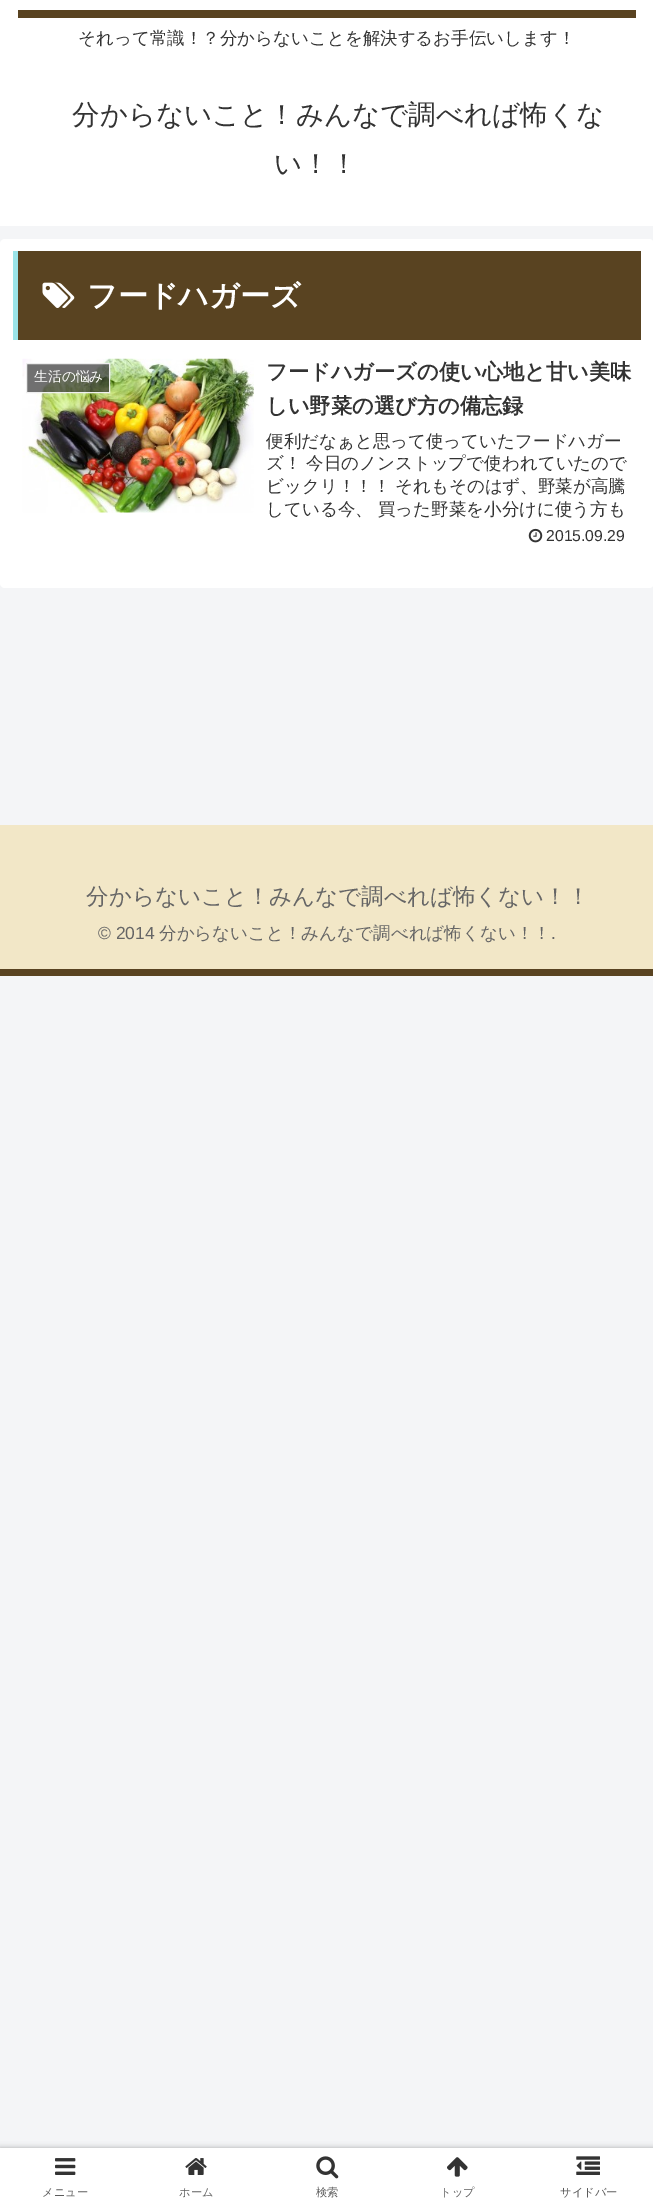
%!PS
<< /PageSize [653 2209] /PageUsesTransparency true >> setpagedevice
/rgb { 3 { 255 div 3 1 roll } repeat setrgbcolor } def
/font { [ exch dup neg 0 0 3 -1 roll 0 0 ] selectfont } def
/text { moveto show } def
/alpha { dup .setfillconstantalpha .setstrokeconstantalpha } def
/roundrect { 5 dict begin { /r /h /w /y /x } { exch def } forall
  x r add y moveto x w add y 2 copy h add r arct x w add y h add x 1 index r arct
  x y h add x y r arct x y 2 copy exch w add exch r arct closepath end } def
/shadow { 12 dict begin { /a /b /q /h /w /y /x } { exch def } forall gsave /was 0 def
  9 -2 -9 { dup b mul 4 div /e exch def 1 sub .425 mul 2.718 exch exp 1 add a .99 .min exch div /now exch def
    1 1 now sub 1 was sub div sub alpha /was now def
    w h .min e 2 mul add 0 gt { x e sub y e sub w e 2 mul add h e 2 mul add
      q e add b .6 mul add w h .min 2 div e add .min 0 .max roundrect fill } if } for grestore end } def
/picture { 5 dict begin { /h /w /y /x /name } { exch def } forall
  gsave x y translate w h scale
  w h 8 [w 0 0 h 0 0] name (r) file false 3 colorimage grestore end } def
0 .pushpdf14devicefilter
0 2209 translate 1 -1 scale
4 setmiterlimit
244 245 247 rgb
0 0 653 2209 rectfill
255 255 255 rgb
0 0 653 226 rectfill
89 67 33 rgb
18 10 618 8 rectfill
255 255 255 rgb
0 239 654 349 5 roundrect fill
89 67 33 rgb
18 251 623 89 rectfill
155 228 232 rgb
13 251 5 89 rectfill
(img_01.rgb) 42 282 33 26 picture
(img_02.rgb) 22 358 232 155 picture
0.7 alpha
51 51 51 rgb
26.5 363.5 moveto 83 0 rlineto 0 29 rlineto -83 0 rlineto closepath fill
1 alpha
238 238 238 rgb
26.5 363.5 moveto 83 0 rlineto 0 29 rlineto -83 0 rlineto closepath stroke
(img_03.rgb) 528 528 15 15 picture
242 231 199 rgb
0 825 653 144 rectfill
89 67 33 rgb
0 969 653 7 rectfill
169 169 169 rgb
0 2148 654 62 0 3 1 shadow
255 255 255 rgb
0 2148 653 61 rectfill
(img_04.rgb) 55 2158 21 17 picture
(img_05.rgb) 185 2158 22 17 picture
(img_06.rgb) 316 2156 23 23 picture
(img_07.rgb) 447 2157 21 20 picture
(img_08.rgb) 576 2156 24 19 picture
/WenQuanYiZenHei-Medium 17.5 font
51 51 51 rgb
(それって常識！？分からないことを解決するお手伝いします！) 78 44 text
/WenQuanYiZenHei-Medium 27.5 font
(分からないこと！みんなで調べれば怖くな) 72 124 text
(い！！) 274 173 text
/WenQuanYiZenHei-Bold 30 font
255 255 255 rgb
(フードハガーズ) 87 306 text
/WenQuanYiZenHei-Medium 13.75 font
(生活の悩み) 34 381 text
/WenQuanYiZenHei-Bold 21.25 font
51 51 51 rgb
(フードハガーズの使い心地と甘い美味) 266 379 text
(しい野菜の選び方の備忘録) 266 413 text
/WenQuanYiZenHei-Medium 17.5 font
(便利だなぁと思って使っていたフードハガー) 266 447 text
(ズ！) 266 469 text
(今日のノンストップで使われていたので) 306 469 text
(ビックリ！！！) 266 492 text
(それもそのはず、野菜が高騰) 395 492 text
(している今、 買った野菜を小分けに使う方も) 266 515 text
/LiberationSans-Regular 15.75 font
(2015.09.29) 546 541 text
/WenQuanYiZenHei-Medium 22.5 font
102 102 102 rgb
(分からないこと！みんなで調べれば怖くない！！) 86 904 text
/LiberationSans-Regular 17.5 font
(© 2014) 98 939 text
/WenQuanYiZenHei-Medium 17.5 font
(分からないこと！みんなで調べれば怖くない！！) 159 939 text
/LiberationSans-Regular 17.5 font
(.) 551 939 text
/WenQuanYiZenHei-Medium 11.25 font
92 92 92 rgb
(メニュー) 42 2196 text
(ホーム) 179 2196 text
(検索) 316 2196 text
(トップ) 440 2196 text
(サイドバー) 560 2196 text
.poppdf14devicefilter showpage
